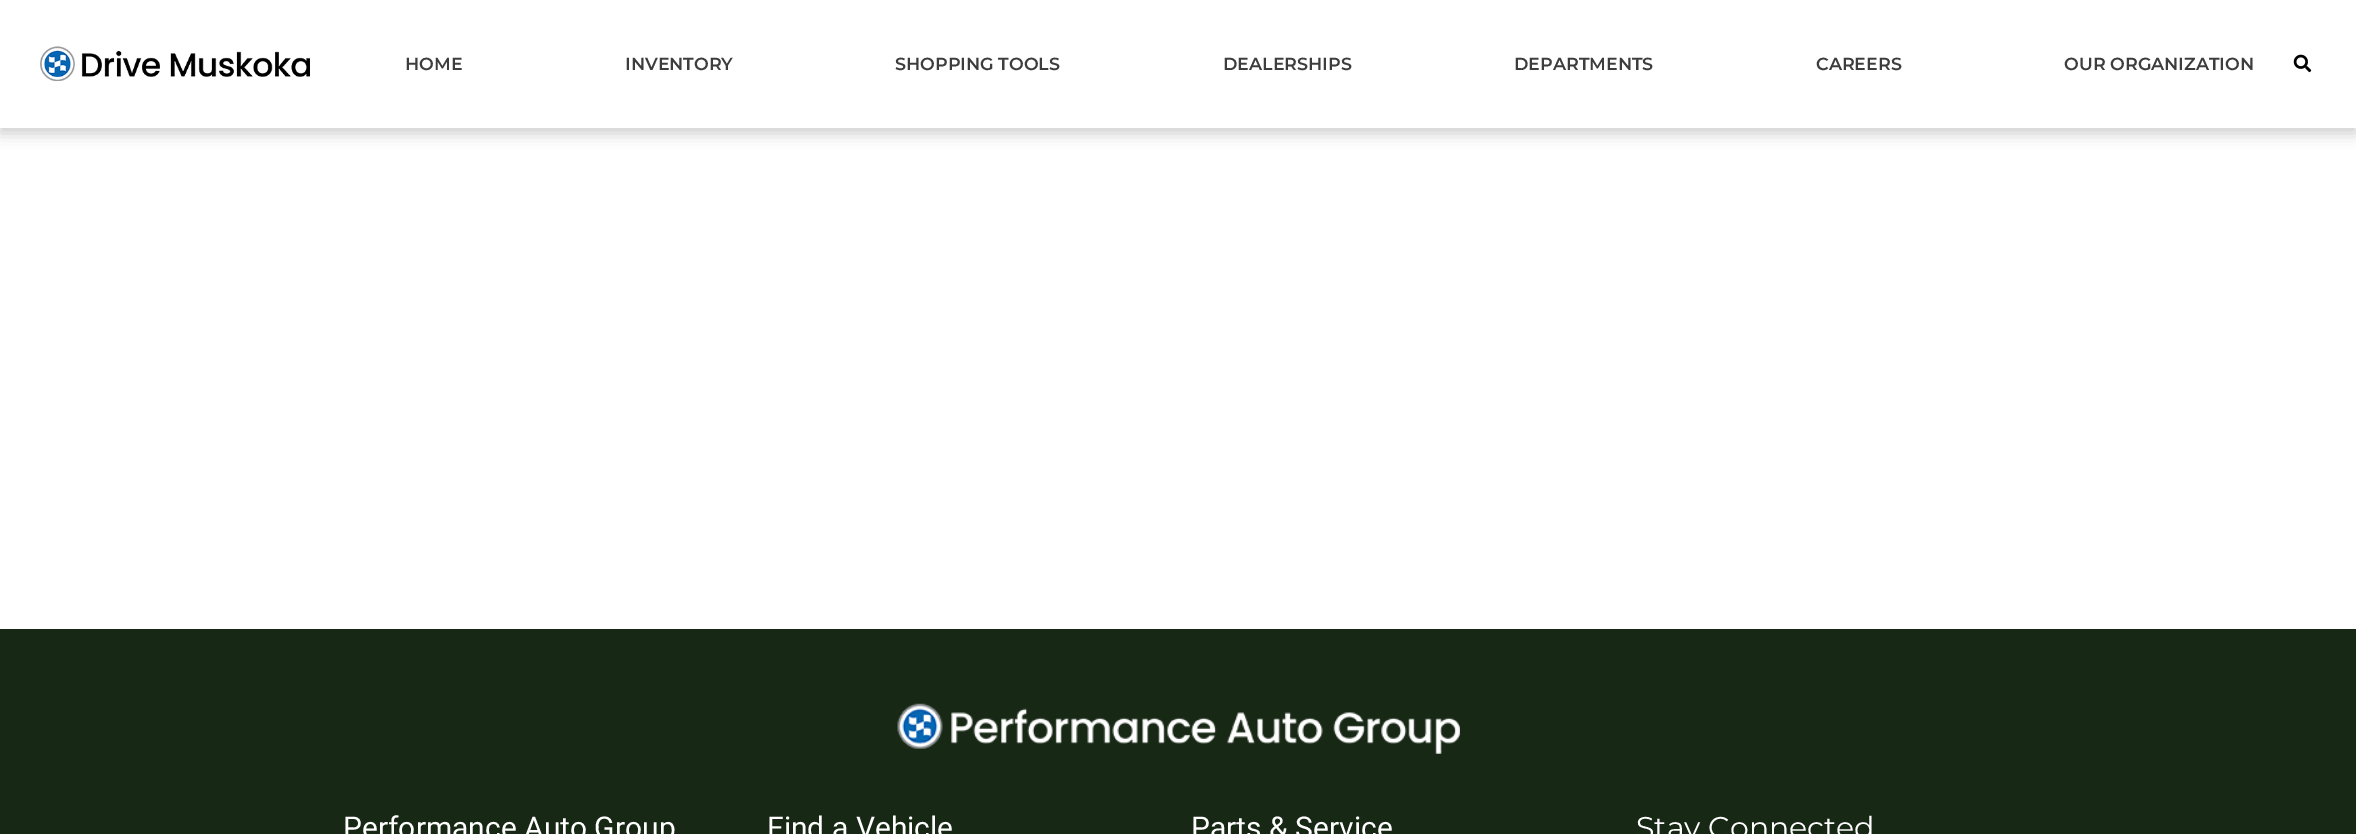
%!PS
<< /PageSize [2356 834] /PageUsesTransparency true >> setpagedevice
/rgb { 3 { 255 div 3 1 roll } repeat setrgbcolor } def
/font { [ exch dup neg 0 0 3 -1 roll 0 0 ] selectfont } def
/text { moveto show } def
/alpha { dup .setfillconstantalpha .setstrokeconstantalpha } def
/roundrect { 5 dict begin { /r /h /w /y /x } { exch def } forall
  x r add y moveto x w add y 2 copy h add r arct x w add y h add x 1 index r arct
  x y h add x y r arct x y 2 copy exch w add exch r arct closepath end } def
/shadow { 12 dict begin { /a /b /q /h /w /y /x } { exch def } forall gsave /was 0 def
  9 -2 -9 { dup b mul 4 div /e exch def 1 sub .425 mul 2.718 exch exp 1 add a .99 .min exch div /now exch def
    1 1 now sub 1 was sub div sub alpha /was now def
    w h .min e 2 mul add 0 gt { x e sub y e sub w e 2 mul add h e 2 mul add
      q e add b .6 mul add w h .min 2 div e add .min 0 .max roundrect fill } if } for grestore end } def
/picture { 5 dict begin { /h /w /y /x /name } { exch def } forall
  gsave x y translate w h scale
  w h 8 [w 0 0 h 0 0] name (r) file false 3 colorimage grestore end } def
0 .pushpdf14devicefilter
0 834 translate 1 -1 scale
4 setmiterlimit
255 255 255 rgb
0 0 2356 834 rectfill
0 0 0 rgb
0 5 2356 128 0 7.5 0.2 shadow
255 255 255 rgb
0 0 2356 128 rectfill
(img_01.rgb) 40 46 270 36 picture
(img_02.rgb) 2293 54 19 19 picture
23 40 21 rgb
0 629 2356 205 rectfill
(img_03.rgb) 897 703 563 51 picture
/Montserrat-SemiBold 17.5 font
61 61 61 rgb
(HOME) 405 70 text
(INVENTORY) 625 70 text
(SHOPPING TOOLS) 895 70 text
(DEALERSHIPS) 1223 70 text
(DEPARTMENTS) 1514 70 text
(CAREERS) 1816 70 text
(OUR ORGANIZATION) 2064 70 text
/Roboto-Regular 30 font
255 255 255 rgb
(Performance Auto Group) 343 838 text
(Find a Vehicle) 767 838 text
(Parts & Service) 1191 838 text
/Montserrat-Regular 30 font
(Stay Connected) 1636 838 text
.poppdf14devicefilter showpage
